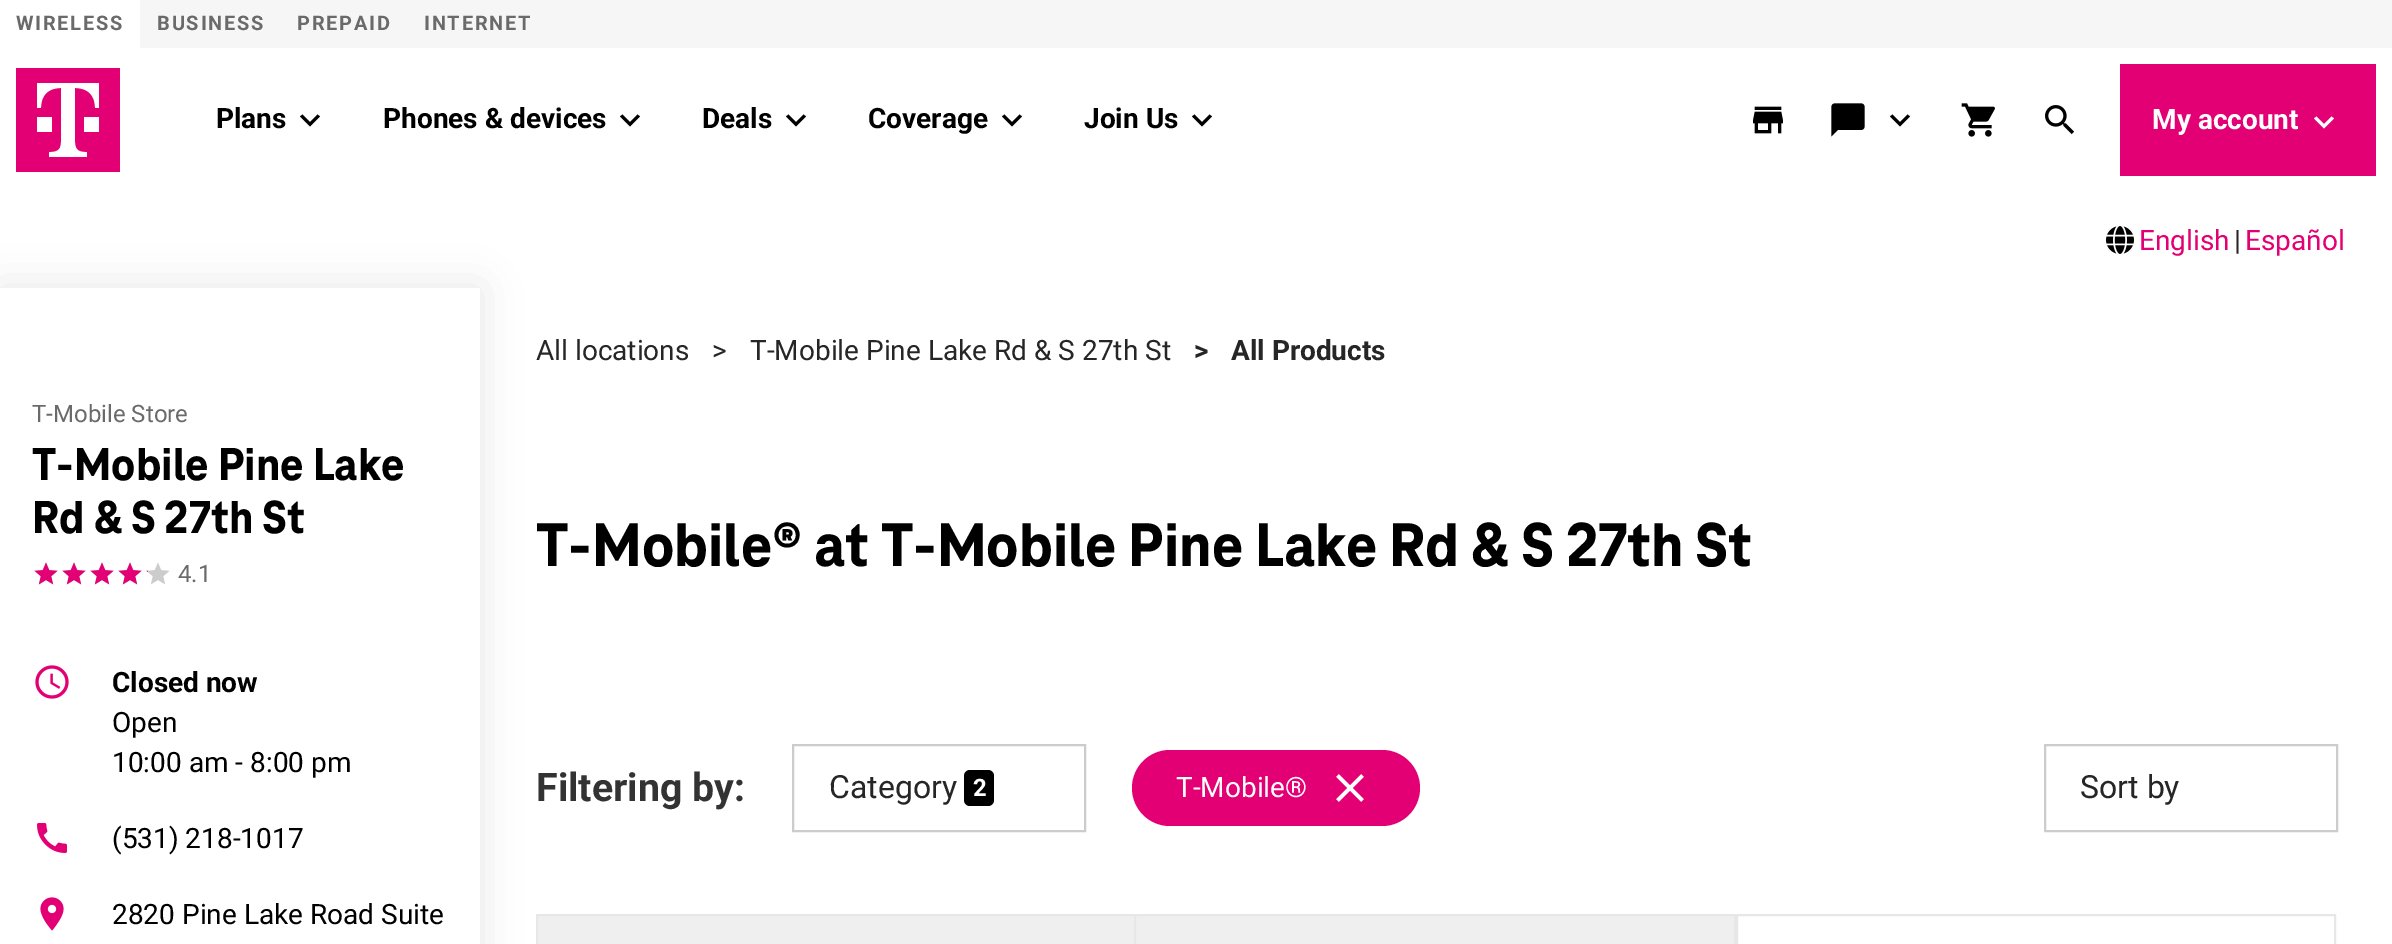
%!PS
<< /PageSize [2392 944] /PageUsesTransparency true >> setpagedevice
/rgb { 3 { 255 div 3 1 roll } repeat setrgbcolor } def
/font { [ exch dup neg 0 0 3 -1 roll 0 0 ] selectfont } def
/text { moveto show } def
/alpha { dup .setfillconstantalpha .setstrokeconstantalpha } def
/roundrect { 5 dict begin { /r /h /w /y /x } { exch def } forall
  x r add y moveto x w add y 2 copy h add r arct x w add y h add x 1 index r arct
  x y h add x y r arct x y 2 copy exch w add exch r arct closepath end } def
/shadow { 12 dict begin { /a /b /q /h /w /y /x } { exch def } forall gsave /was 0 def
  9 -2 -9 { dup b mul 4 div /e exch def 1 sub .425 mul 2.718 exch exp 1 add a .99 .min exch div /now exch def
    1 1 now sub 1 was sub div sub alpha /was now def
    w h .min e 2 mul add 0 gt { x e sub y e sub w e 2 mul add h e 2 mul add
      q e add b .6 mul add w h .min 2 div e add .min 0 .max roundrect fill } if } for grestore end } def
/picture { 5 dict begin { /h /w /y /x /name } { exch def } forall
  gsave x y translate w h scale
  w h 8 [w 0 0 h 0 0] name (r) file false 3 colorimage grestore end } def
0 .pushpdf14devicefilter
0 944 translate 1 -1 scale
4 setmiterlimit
255 255 255 rgb
0 0 2392 944 rectfill
246 246 246 rgb
140 0 2252 48 rectfill
226 0 116 rgb
16 68 104 104 rectfill
255 255 255 rgb
52 132 moveto -15 0 rlineto 0 -15 rlineto 15 0 rlineto closepath 37 83 moveto 0 25 rlineto 4 0 rlineto 0 -13 7 -20 20 -20 rcurveto 0 54 rlineto 0 7 -3 10 -10 10 rcurveto -2 0 rlineto 0 5 rlineto 38 0 rlineto 0 -5 rlineto -2 0 rlineto -7 0 -10 -3 -10 -10 rcurveto 0 -54 rlineto 13 0 20 7 20 20 rcurveto 4 0 rlineto 0 -25 rlineto closepath 84 132 moveto 15 0 rlineto 0 -15 rlineto -15 0 rlineto closepath fill
0 0 0 rgb
317.5 114.5 moveto -7.5 7.5 rlineto -7.5 -7.5 rlineto -2.5 2 rlineto 10 10 rlineto 10 -10 rlineto closepath fill
637.5 114.5 moveto -7.5 7.5 rlineto -7.5 -7.5 rlineto -2.5 2 rlineto 10 10 rlineto 10 -10 rlineto closepath fill
803.5 114.5 moveto -7.5 7.5 rlineto -7.5 -7.5 rlineto -2.5 2 rlineto 10 10 rlineto 10 -10 rlineto closepath fill
1019.5 114.5 moveto -7.5 7.5 rlineto -7.5 -7.5 rlineto -2.5 2 rlineto 10 10 rlineto 10 -10 rlineto closepath fill
1209.5 114.5 moveto -7.5 7.5 rlineto -7.5 -7.5 rlineto -2.5 2 rlineto 10 10 rlineto 10 -10 rlineto closepath fill
(img_01.rgb) 1753 106 30 28 picture
(img_02.rgb) 1831 103 34 34 picture
1907.5 114.5 moveto -7.5 7.5 rlineto -7.5 -7.5 rlineto -2.5 2 rlineto 10 10 rlineto 10 -10 rlineto closepath fill
(img_03.rgb) 1961 103 34 34 picture
(img_04.rgb) 2045 105 30 30 picture
226 0 116 rgb
2120 64 256 112 rectfill
255 255 255 rgb
2316.5 116.5 moveto 7.5 7.5 rlineto 7.5 -7.5 rlineto 2.5 2 rlineto -10 10 rlineto -10 -10 rlineto closepath fill
(img_05.rgb) 2106 226 28 28 picture
239 239 239 rgb
538 916 596 28 rectfill
231 231 232 rgb
2 setlinewidth
537 915 600 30 rectstroke
gsave
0 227 moveto 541 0 rlineto 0 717 rlineto -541 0 rlineto closepath 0 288 moveto 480 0 rlineto 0 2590 rlineto -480 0 rlineto closepath eoclip newpath
71 71 71 rgb
0 288 480 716 0 20 0.12 shadow
grestore
(img_06.rgb) 34 562 136 23 picture
(img_07.rgb) 34 562 114 23 picture
(img_08.rgb) 35 665 34 34 picture
(img_09.rgb) 37 823 30 30 picture
(img_10.rgb) 40 897 24 34 picture
0 0 0 rgb
964 770 30 36 6 roundrect fill
204 204 204 rgb
793 745 292 86 rectstroke
226 0 116 rgb
1132 750 288 76 38 roundrect fill
(img_11.rgb) 1336 774 28 28 picture
204 204 204 rgb
2045 745 292 86 rectstroke
239 239 239 rgb
1136 916 598 28 rectfill
231 231 232 rgb
1135 915 602 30 rectstroke
1735 915 600 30 rectstroke
/Roboto-Bold 20 font
106 106 106 rgb
16 30 moveto 1.75 0 (WIRELESS) ashow
157 30 moveto 1.75 0 (BUSINESS) ashow
297 30 moveto 1.75 0 (PREPAID) ashow
424 30 moveto 1.75 0 (INTERNET) ashow
/Roboto-Bold 28 font
0 0 0 rgb
(Plans) 216 128 text
(Phones & devices) 383 128 text
(Deals) 702 128 text
(Coverage) 868 128 text
(Join Us) 1084 128 text
255 255 255 rgb
(My account) 2152 129 text
/Roboto-Regular 28 font
226 0 116 rgb
(English) 2139 250 text
38 38 38 rgb
(|) 2234 250 text
226 0 116 rgb
(Español) 2245 250 text
/Roboto-Regular 24 font
106 106 106 rgb
(T-Mobile Store) 32 422 text
/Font-ExtraBold 48 font
0 0 0 rgb
(T-Mobile Pine Lake) 32 480 text
(Rd & S 27th St) 32 533 text
/Roboto-Regular 24 font
106 106 106 rgb
(4.1) 178 582 text
/Roboto-Bold 28 font
0 0 0 rgb
(Closed now) 112 692 text
/Roboto-Regular 28 font
(Open) 112 732 text
(10:00 am - 8:00 pm) 112 772 text
(\(531\) 218-1017) 112 848 text
(2820 Pine Lake Road Suite) 112 924 text
38 38 38 rgb
(All locations) 536 360 text
(>) 712 360 text
(T-Mobile Pine Lake Rd & S 27th St) 750 360 text
/Roboto-Bold 28 font
(>) 1194 360 text
(All Products) 1231 360 text
/Font-ExtraBold 64 font
0 0 0 rgb
(T-Mobile® at T-Mobile Pine Lake Rd & S 27th St) 536 566 text
/Roboto-Bold 39.25 font
51 51 51 rgb
(Filtering by:) 536 801 text
/Roboto-Regular 32 font
38 38 38 rgb
(Category) 829 798 text
/Roboto-Bold 24 font
255 255 255 rgb
(2) 973 796 text
/Roboto-Regular 28 font
(T-Mobile®) 1176 797 text
/Roboto-Regular 32 font
38 38 38 rgb
(Sort by) 2080 798 text
.poppdf14devicefilter showpage
